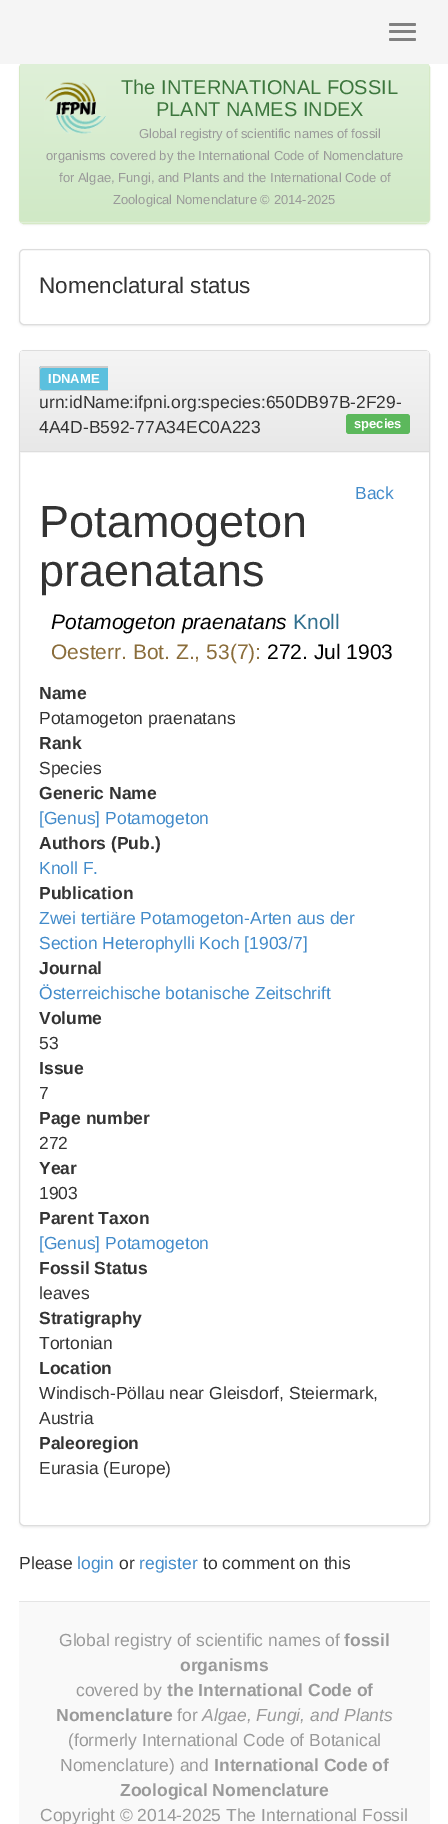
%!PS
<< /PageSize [448 1824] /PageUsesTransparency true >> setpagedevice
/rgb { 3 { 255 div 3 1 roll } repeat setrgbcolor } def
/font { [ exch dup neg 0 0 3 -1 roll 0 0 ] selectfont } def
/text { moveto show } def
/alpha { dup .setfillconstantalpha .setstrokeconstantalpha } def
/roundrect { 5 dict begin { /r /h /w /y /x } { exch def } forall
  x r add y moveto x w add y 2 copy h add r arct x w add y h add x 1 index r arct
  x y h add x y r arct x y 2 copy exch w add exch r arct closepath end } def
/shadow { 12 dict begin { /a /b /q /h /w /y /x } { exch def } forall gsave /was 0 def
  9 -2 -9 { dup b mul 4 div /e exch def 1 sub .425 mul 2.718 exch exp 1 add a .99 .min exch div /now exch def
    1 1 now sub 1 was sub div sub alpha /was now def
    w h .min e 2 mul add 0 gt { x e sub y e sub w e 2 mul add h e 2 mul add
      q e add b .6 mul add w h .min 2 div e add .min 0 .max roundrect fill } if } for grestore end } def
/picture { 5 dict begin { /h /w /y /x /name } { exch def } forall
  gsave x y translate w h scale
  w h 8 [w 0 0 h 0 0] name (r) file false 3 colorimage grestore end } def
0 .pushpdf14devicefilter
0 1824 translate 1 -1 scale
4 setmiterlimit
255 255 255 rgb
0 0 448 1824 rectfill
0 0 0 rgb
19 64 411 161 5 1 0.05 shadow
214 233 198 rgb
19.5 63.5 410 160 4.5 roundrect stroke
245 245 245 rgb
0 0 448 64 rectfill
128 128 128 rgb
389 23 27 3 1.5 roundrect fill
389 30 27 3 1.5 roundrect fill
389 38 27 3 1.5 roundrect fill
223 240 216 rgb
24 64 moveto 401 0 rlineto 2 0 4 2 4 4 rcurveto 0 155 rlineto -409 0 rlineto 0 -155 rlineto 0 -2 2 -4 4 -4 rcurveto closepath fill
gsave 24 64 moveto 401 0 rlineto 2 0 4 2 4 4 rcurveto 0 153 rlineto -409 0 rlineto 0 -153 rlineto 0 -2 2 -4 4 -4 rcurveto closepath clip newpath
<< /ShadingType 2 /ColorSpace /DeviceRGB /Coords [224 64 224 221] /Extend [true true] /Function << /FunctionType 2 /Domain [0 1] /C0 [0.875 0.941 0.847] /C1 [0.816 0.914 0.776] /N 1 >> >> shfill grestore
214 233 198 rgb
20 221 409 1 rectfill
(img_01.rgb) 44 82 62 52 picture
0 0 0 rgb
19 250 411 76 5 1 0.07 shadow
255 255 255 rgb
19.5 249.5 410 75 4.5 roundrect gsave fill grestore
221 221 221 rgb
stroke
gsave
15 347 moveto 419 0 rlineto 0 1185 rlineto -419 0 rlineto closepath 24 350 moveto 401 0 rlineto 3 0 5 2 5 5 rcurveto 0 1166 rlineto 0 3 -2 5 -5 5 rcurveto -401 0 rlineto -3 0 -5 -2 -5 -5 rcurveto 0 -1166 rlineto 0 -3 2 -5 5 -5 rcurveto closepath eoclip newpath
0 0 0 rgb
19 351 411 1177 5 1 0.05 shadow
grestore
19.5 350.5 410 1175 4.5 roundrect stroke
245 245 245 rgb
24 351 moveto 401 0 rlineto 2 0 4 2 4 4 rcurveto 0 98 rlineto -409 0 rlineto 0 -98 rlineto 0 -2 2 -4 4 -4 rcurveto closepath fill
gsave 24 351 moveto 401 0 rlineto 2 0 4 2 4 4 rcurveto 0 96 rlineto -409 0 rlineto 0 -96 rlineto 0 -2 2 -4 4 -4 rcurveto closepath clip newpath
<< /ShadingType 2 /ColorSpace /DeviceRGB /Coords [224 351 224 451] /Extend [true true] /Function << /FunctionType 2 /Domain [0 1] /C0 [0.961 0.961 0.961] /C1 [0.91 0.91 0.91] /N 1 >> >> shfill grestore
221 221 221 rgb
20 451 409 1 rectfill
91 192 222 rgb
42 366 moveto 66 0 rlineto 0 25 rlineto -66 0 rlineto -1.5 0 -3 -1.5 -3 -3 rcurveto 0 -19 rlineto 0 -1.5 1.5 -3 3 -3 rcurveto closepath fill
204 204 204 rgb
42 366 moveto 66 0 rlineto 0 25 rlineto -66 0 rlineto -2 0 -3 -1 -3 -3 rcurveto 0 -18 rlineto 0 -2 1 -4 3 -4 rcurveto closepath 42 368 moveto 66 0 rlineto 0 22 rlineto -66 0 rlineto -1 0 -2 -1 -2 -2 rcurveto 0 -18 rlineto 0 -2 1 -2 2 -2 rcurveto closepath eofill
92 184 92 rgb
346 414 64 20 3 roundrect fill
249 249 249 rgb
19 1602 411 222 rectfill
229 229 229 rgb
19 1601 411 1 rectfill
/LiberationSans-Regular 20 font
60 118 61 rgb
(The INTERNATIONAL FOSSIL) 121 94 text
(PLANT NAMES INDEX) 156 116 text
/LiberationSans-Regular 13 font
153 153 153 rgb
(Global registry of scientific names of fossil) 139 138 text
(organisms covered by the International Code of Nomenclature) 46 160 text
(for Algae, Fungi, and Plants and the International Code of) 59 182 text
(Zoological Nomenclature © 2014-2025) 113 204 text
/LiberationSans-Regular 22.5 font
51 51 51 rgb
(Nomenclatural status) 39 293 text
/LiberationSans-Bold 13 font
255 255 255 rgb
(IDNAME) 48 383 text
/LiberationSans-Regular 17.5 font
51 51 51 rgb
(urn:idName:ifpni.org:species:650DB97B-2F29-) 39 408 text
(4A4D-B592-77A34EC0A223) 39 433 text
/LiberationSans-Bold 13 font
255 255 255 rgb
(species) 354 428 text
/LiberationSans-Regular 17.5 font
66 139 202 rgb
(Back) 355 499 text
/LiberationSans-Regular 45 font
51 51 51 rgb
(Potamogeton) 39 537 text
(praenatans) 39 586 text
/LiberationSans-Italic 21 font
0 0 0 rgb
(Potamogeton praenatans) 51 629 text
/LiberationSans-Regular 21 font
49 112 143 rgb
(Knoll) 293 629 text
138 109 59 rgb
(Oesterr. Bot. Z., 53\(7\):) 51 659 text
0 0 0 rgb
(272. Jul 1903) 267 659 text
/LiberationSans-Bold 17.5 font
51 51 51 rgb
(Name) 39 699 text
/LiberationSans-Regular 17.5 font
(Potamogeton praenatans) 39 724 text
/LiberationSans-Bold 17.5 font
(Rank) 39 749 text
/LiberationSans-Regular 17.5 font
(Species) 39 774 text
/LiberationSans-Bold 17.5 font
(Generic Name) 39 799 text
/LiberationSans-Regular 17.5 font
66 139 202 rgb
([Genus] Potamogeton) 39 824 text
/LiberationSans-Bold 17.5 font
51 51 51 rgb
(Authors \(Pub.\)) 39 849 text
/LiberationSans-Regular 17.5 font
66 139 202 rgb
(Knoll F.) 39 874 text
/LiberationSans-Bold 17.5 font
51 51 51 rgb
(Publication) 39 899 text
/LiberationSans-Regular 17.5 font
66 139 202 rgb
(Zwei tertiäre Potamogeton-Arten aus der) 39 924 text
(Section Heterophylli Koch [1903/7]) 39 949 text
/LiberationSans-Bold 17.5 font
51 51 51 rgb
(Journal) 39 974 text
/LiberationSans-Regular 17.5 font
66 139 202 rgb
(Österreichische botanische Zeitschrift) 39 999 text
/LiberationSans-Bold 17.5 font
51 51 51 rgb
(Volume) 39 1024 text
/LiberationSans-Regular 17.5 font
(53) 39 1049 text
/LiberationSans-Bold 17.5 font
(Issue) 39 1074 text
/LiberationSans-Regular 17.5 font
(7) 39 1099 text
/LiberationSans-Bold 17.5 font
(Page number) 39 1124 text
/LiberationSans-Regular 17.5 font
(272) 39 1149 text
/LiberationSans-Bold 17.5 font
(Year) 39 1174 text
/LiberationSans-Regular 17.5 font
(1903) 39 1199 text
/LiberationSans-Bold 17.5 font
(Parent Taxon) 39 1224 text
/LiberationSans-Regular 17.5 font
66 139 202 rgb
([Genus] Potamogeton) 39 1249 text
/LiberationSans-Bold 17.5 font
51 51 51 rgb
(Fossil Status) 39 1274 text
/LiberationSans-Regular 17.5 font
(leaves) 39 1299 text
/LiberationSans-Bold 17.5 font
(Stratigraphy) 39 1324 text
/LiberationSans-Regular 17.5 font
(Tortonian) 39 1349 text
/LiberationSans-Bold 17.5 font
(Location) 39 1374 text
/LiberationSans-Regular 17.5 font
(Windisch-Pöllau near Gleisdorf, Steiermark,) 39 1399 text
(Austria) 39 1424 text
/LiberationSans-Bold 17.5 font
(Paleoregion) 39 1449 text
/LiberationSans-Regular 17.5 font
(Eurasia \(Europe\)) 39 1474 text
(Please) 19 1569 text
66 139 202 rgb
(login) 77 1569 text
51 51 51 rgb
(or) 119 1569 text
66 139 202 rgb
(register) 139 1569 text
51 51 51 rgb
(to comment on this) 203 1569 text
153 153 153 rgb
(Global registry of scientific names of) 59 1646 text
/LiberationSans-Bold 17.5 font
(fossil) 344 1646 text
(organisms) 180 1671 text
/LiberationSans-Regular 17.5 font
(covered by) 76 1696 text
/LiberationSans-Bold 17.5 font
(the International Code of) 167 1696 text
(Nomenclature) 56 1721 text
/LiberationSans-Regular 17.5 font
(for) 177 1721 text
/LiberationSans-Italic 17.5 font
(Algae, Fungi, and Plants) 202 1721 text
/LiberationSans-Regular 17.5 font
(\(formerly International Code of Botanical) 68 1746 text
(Nomenclature\) and) 60 1771 text
/LiberationSans-Bold 17.5 font
(International Code of) 214 1771 text
(Zoological Nomenclature) 120 1796 text
/LiberationSans-Regular 17.5 font
(Copyright © 2014-2025 The International Fossil) 40 1821 text
.poppdf14devicefilter showpage
